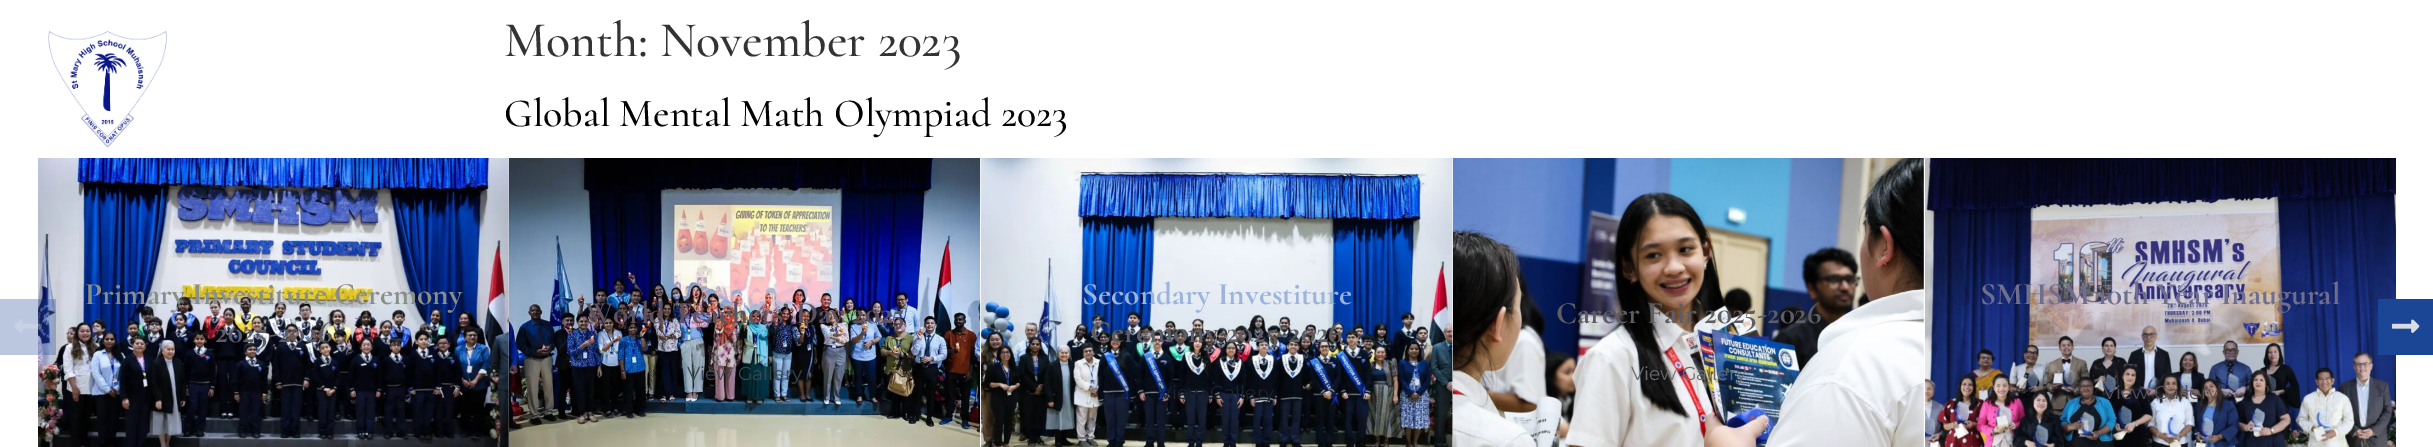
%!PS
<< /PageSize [2433 447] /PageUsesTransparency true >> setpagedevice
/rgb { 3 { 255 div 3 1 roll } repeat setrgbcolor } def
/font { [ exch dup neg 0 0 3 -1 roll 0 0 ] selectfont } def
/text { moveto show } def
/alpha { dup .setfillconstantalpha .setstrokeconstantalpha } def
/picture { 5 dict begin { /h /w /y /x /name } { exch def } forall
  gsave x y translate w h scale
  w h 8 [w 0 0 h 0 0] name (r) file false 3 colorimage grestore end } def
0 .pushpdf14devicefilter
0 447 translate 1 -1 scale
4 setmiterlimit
255 255 255 rgb
0 0 2433 447 rectfill
(img_01.rgb) 48 31 119 117 picture
(img_03.rgb) 38 158 471 289 picture
0.3 alpha
27 70 150 rgb
0 299 56 56 rectfill
1 alpha
(img_02.rgb) 14 319 28 14 picture
(img_04.rgb) 509 158 472 289 picture
(img_05.rgb) 981 158 472 289 picture
(img_06.rgb) 1453 158 471 289 picture
(img_07.rgb) 1925 158 471 289 picture
2378 299 55 56 rectfill
(img_08.rgb) 2391 319 29 14 picture
/Cormorant-Medium 50 font
51 51 51 rgb
(Month: November 2023) 504 56 text
/Cormorant-Medium 40 font
0 0 0 rgb
(Global Mental Math Olympiad 2023) 504 126 text
/Cormorant-Bold 31.25 font
136 142 136 rgb
(Primary Investiture Ceremony) 85 304 text
93 93 99 rgb
(2025-2026) 215 342 text
94 82 94 rgb
(World Teachers’ Day 2025) 585 323 text
/Montserrat-Regular 18.75 font
58 71 83 rgb
(View Gallery) 687 380 text
/Cormorant-Bold 31.25 font
157 180 218 rgb
(Secondary Investiture) 1082 304 text
93 93 99 rgb
(Ceremony 2025-2026) 1090 342 text
/Montserrat-Regular 18.75 font
28 33 48 rgb
(View Gallery) 1159 399 text
/Cormorant-Bold 31.25 font
93 93 99 rgb
(Career Fair 2025-2026) 1556 323 text
/Montserrat-Regular 18.75 font
106 107 112 rgb
(View Gallery) 1631 380 text
/Cormorant-Bold 31.25 font
111 110 143 rgb
(SMHSM 10th Year Inaugural) 1980 304 text
/Montserrat-Regular 18.75 font
87 81 86 rgb
(View Gallery) 2103 399 text
.poppdf14devicefilter showpage
